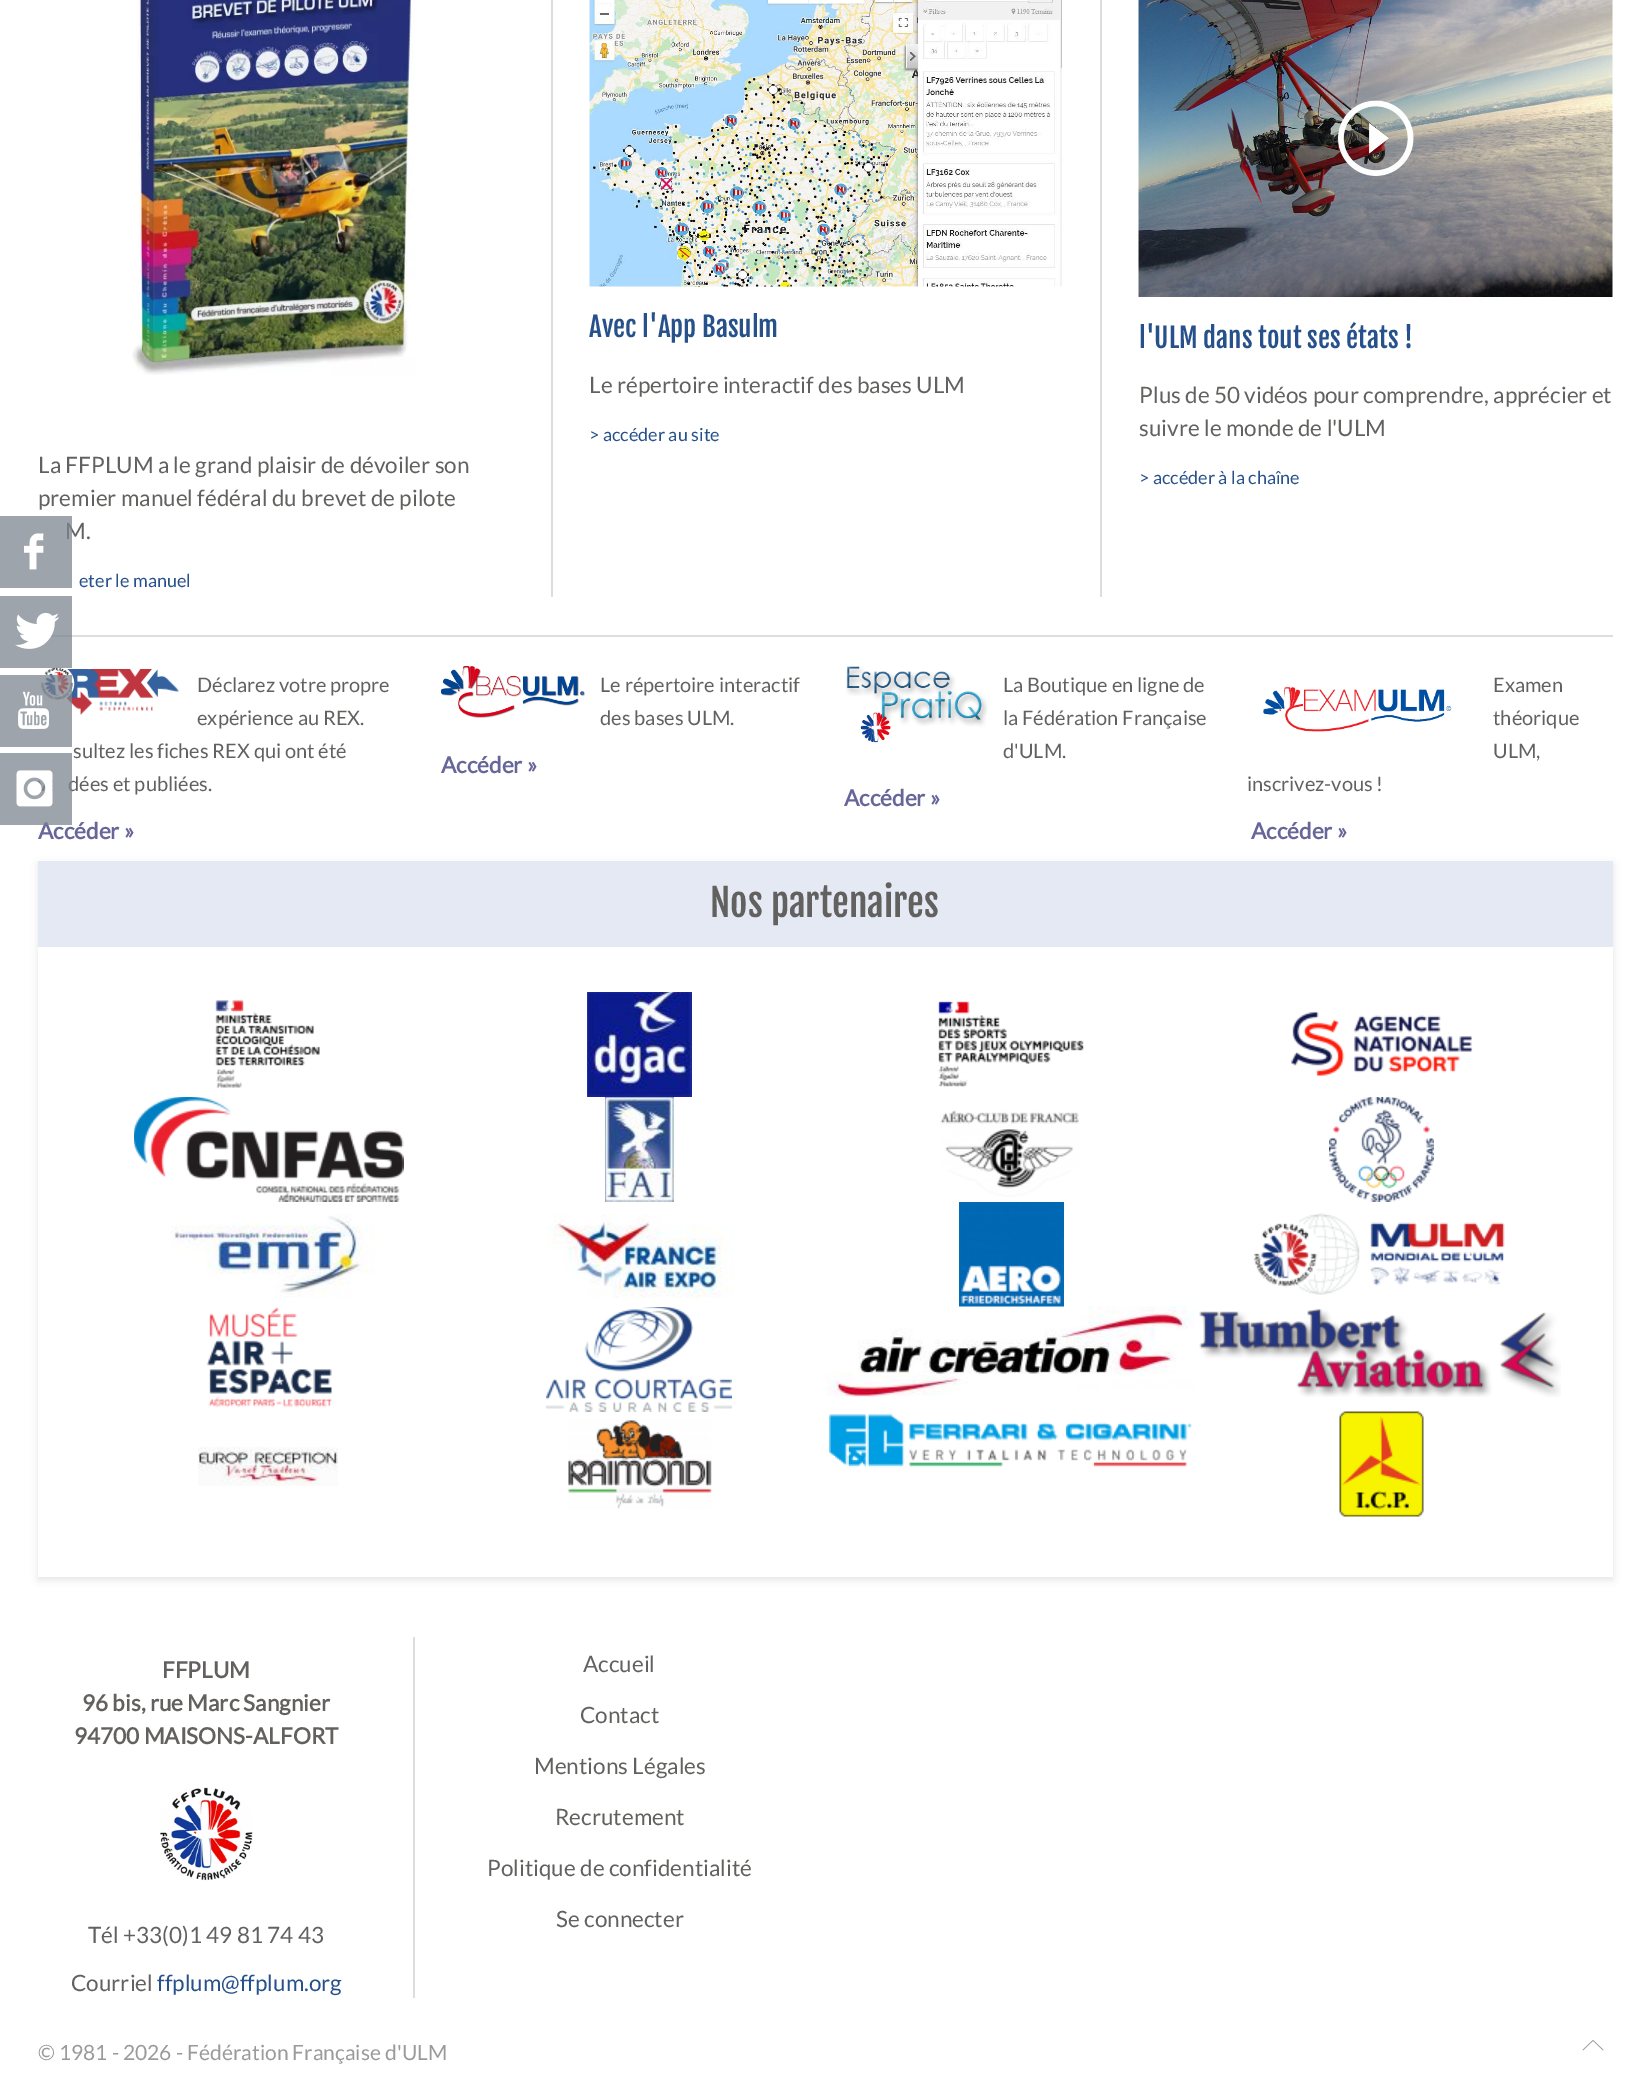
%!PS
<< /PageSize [1649 2090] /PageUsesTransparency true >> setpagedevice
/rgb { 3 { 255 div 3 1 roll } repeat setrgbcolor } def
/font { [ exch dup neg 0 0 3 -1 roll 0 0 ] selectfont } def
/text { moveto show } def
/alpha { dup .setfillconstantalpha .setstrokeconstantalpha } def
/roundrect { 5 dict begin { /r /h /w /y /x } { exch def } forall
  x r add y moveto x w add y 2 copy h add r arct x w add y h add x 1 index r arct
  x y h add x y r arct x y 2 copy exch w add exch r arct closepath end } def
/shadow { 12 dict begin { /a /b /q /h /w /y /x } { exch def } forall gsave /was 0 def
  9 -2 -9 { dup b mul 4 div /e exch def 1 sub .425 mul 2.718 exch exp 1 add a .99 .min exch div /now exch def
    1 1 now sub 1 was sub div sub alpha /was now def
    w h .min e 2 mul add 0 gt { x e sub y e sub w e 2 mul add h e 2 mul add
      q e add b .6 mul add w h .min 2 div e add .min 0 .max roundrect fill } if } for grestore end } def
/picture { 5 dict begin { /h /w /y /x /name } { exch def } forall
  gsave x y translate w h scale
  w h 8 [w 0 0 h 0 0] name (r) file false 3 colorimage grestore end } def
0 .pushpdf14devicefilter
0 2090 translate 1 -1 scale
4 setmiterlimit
255 255 255 rgb
0 0 1649 2090 rectfill
221 221 221 rgb
551 0 2 597 rectfill
(img_01.rgb) 589 0 473 287 picture
1100 0 2 597 rectfill
(img_02.rgb) 1138 0 475 297 picture
(img_03.rgb) 132 0 283 375 picture
50 635 1563 2 rectfill
(img_04.rgb) 40 667 139 48 picture
(img_05.rgb) 441 666 144 52 picture
(img_06.rgb) 846 666 142 77 picture
(img_07.rgb) 1263 686 189 46 picture
160 167 169 rgb
38 864 1575 716 0 4 0.3 shadow
255 255 255 rgb
38 947 1575 630 rectfill
228 233 243 rgb
38 861 1575 86 rectfill
(img_08.rgb) 215 1000 105 88 picture
(img_09.rgb) 587 992 105 105 picture
(img_10.rgb) 938 1001 146 86 picture
(img_11.rgb) 1291 1011 182 66 picture
(img_12.rgb) 134 1097 270 105 picture
(img_13.rgb) 605 1097 69 105 picture
(img_14.rgb) 940 1110 139 87 picture
(img_15.rgb) 1329 1097 105 105 picture
(img_16.rgb) 171 1214 204 84 picture
(img_17.rgb) 547 1214 187 85 picture
(img_18.rgb) 959 1202 105 105 picture
(img_19.rgb) 1253 1213 252 82 picture
(img_20.rgb) 206 1307 126 101 picture
(img_21.rgb) 546 1307 186 105 picture
(img_22.rgb) 825 1306 370 91 picture
(img_23.rgb) 1199 1309 362 88 picture
(img_24.rgb) 198 1447 140 39 picture
(img_25.rgb) 568 1420 144 89 picture
(img_26.rgb) 829 1414 363 54 picture
(img_27.rgb) 1339 1411 85 106 picture
(img_28.rgb) 160 1787 93 94 picture
221 221 221 rgb
413 1637 2 361 rectfill
0.75 alpha
124 133 143 rgb
0 596 72 72 rectfill
1 alpha
(img_30.rgb) 15 612 45 37 picture
0.75 alpha
0 675 72 72 rectfill
1 alpha
(img_31.rgb) 18 691 32 38 picture
(img_33.rgb) 1582 2040 22 11 picture
/FjallaOne-Regular 27 font
39 81 139 rgb
(Avec l'App Basulm) 589 337 text
/Lato-Regular 22.5 font
98 97 95 rgb
(Le répertoire interactif des bases ULM) 589 393 text
/Lato-Regular 18 font
39 81 139 rgb
(> accéder au site) 589 441 text
/FjallaOne-Regular 27 font
(l'ULM dans tout ses états !) 1139 348 text
/Lato-Regular 22.5 font
98 97 95 rgb
(Plus de 50 vidéos pour comprendre, apprécier et) 1139 403 text
(suivre le monde de l'ULM) 1139 436 text
/Lato-Regular 18 font
39 81 139 rgb
(> accéder à la chaîne) 1139 484 text
/Lato-Regular 22.5 font
98 97 95 rgb
(La FFPLUM a le grand plaisir de dévoiler son) 38 473 text
(premier manuel fédéral du brevet de pilote) 38 506 text
(M.) 65 539 text
/Lato-Regular 18 font
39 81 139 rgb
(eter le manuel) 79 587 text
/Lato-Regular 20 font
98 97 95 rgb
(Déclarez votre propre) 197 692 text
(expérience au REX.) 197 725 text
(sultez les fiches REX qui ont été) 73 758 text
(dées et publiées.) 68 791 text
/Lato-Bold 22.5 font
102 102 153 rgb
(Accéder ») 38 839 text
/Lato-Regular 20 font
98 97 95 rgb
(Le répertoire interactif) 600 692 text
(des bases ULM.) 600 725 text
/Lato-Bold 22.5 font
102 102 153 rgb
(Accéder ») 441 773 text
/Lato-Regular 20 font
98 97 95 rgb
(La Boutique en ligne de) 1003 692 text
(la Fédération Française) 1003 725 text
(d'ULM.) 1003 758 text
/Lato-Bold 22.5 font
102 102 153 rgb
(Accéder ») 844 806 text
/Lato-Regular 20 font
98 97 95 rgb
(Examen) 1493 692 text
(théorique) 1493 725 text
(ULM,) 1493 758 text
(inscrivez-vous !) 1247 791 text
/Lato-Bold 22.5 font
102 102 153 rgb
(Accéder ») 1251 839 text
/FjallaOne-Regular 37.5 font
98 97 95 rgb
(Nos partenaires) 710 917 text
/Lato-Bold 22.5 font
(FFPLUM) 162 1678 text
(96 bis, rue Marc Sangnier) 82 1711 text
(94700 MAISONS-ALFORT) 74 1744 text
/Lato-Regular 22.5 font
(Tél +33\(0\)1 49 81 74 43) 88 1943 text
(Courriel) 71 1991 text
39 81 139 rgb
(ffplum@ffplum.org) 157 1991 text
98 97 95 rgb
(Accueil) 583 1672 text
(Contact) 580 1723 text
(Mentions Légales) 534 1774 text
(Recrutement) 555 1825 text
(Politique de confidentialité) 487 1876 text
(Se connecter) 556 1927 text
0.75 alpha
124 133 143 rgb
0 516 72 72 rectfill
1 alpha
(img_29.rgb) 24 533 20 37 picture
0.75 alpha
0 753 72 72 rectfill
1 alpha
(img_32.rgb) 16 770 37 37 picture
/Lato-Regular 21 font
154 154 156 rgb
(© 1981 - 2026 - Fédération Française d'ULM) 38 2060 text
.poppdf14devicefilter showpage
